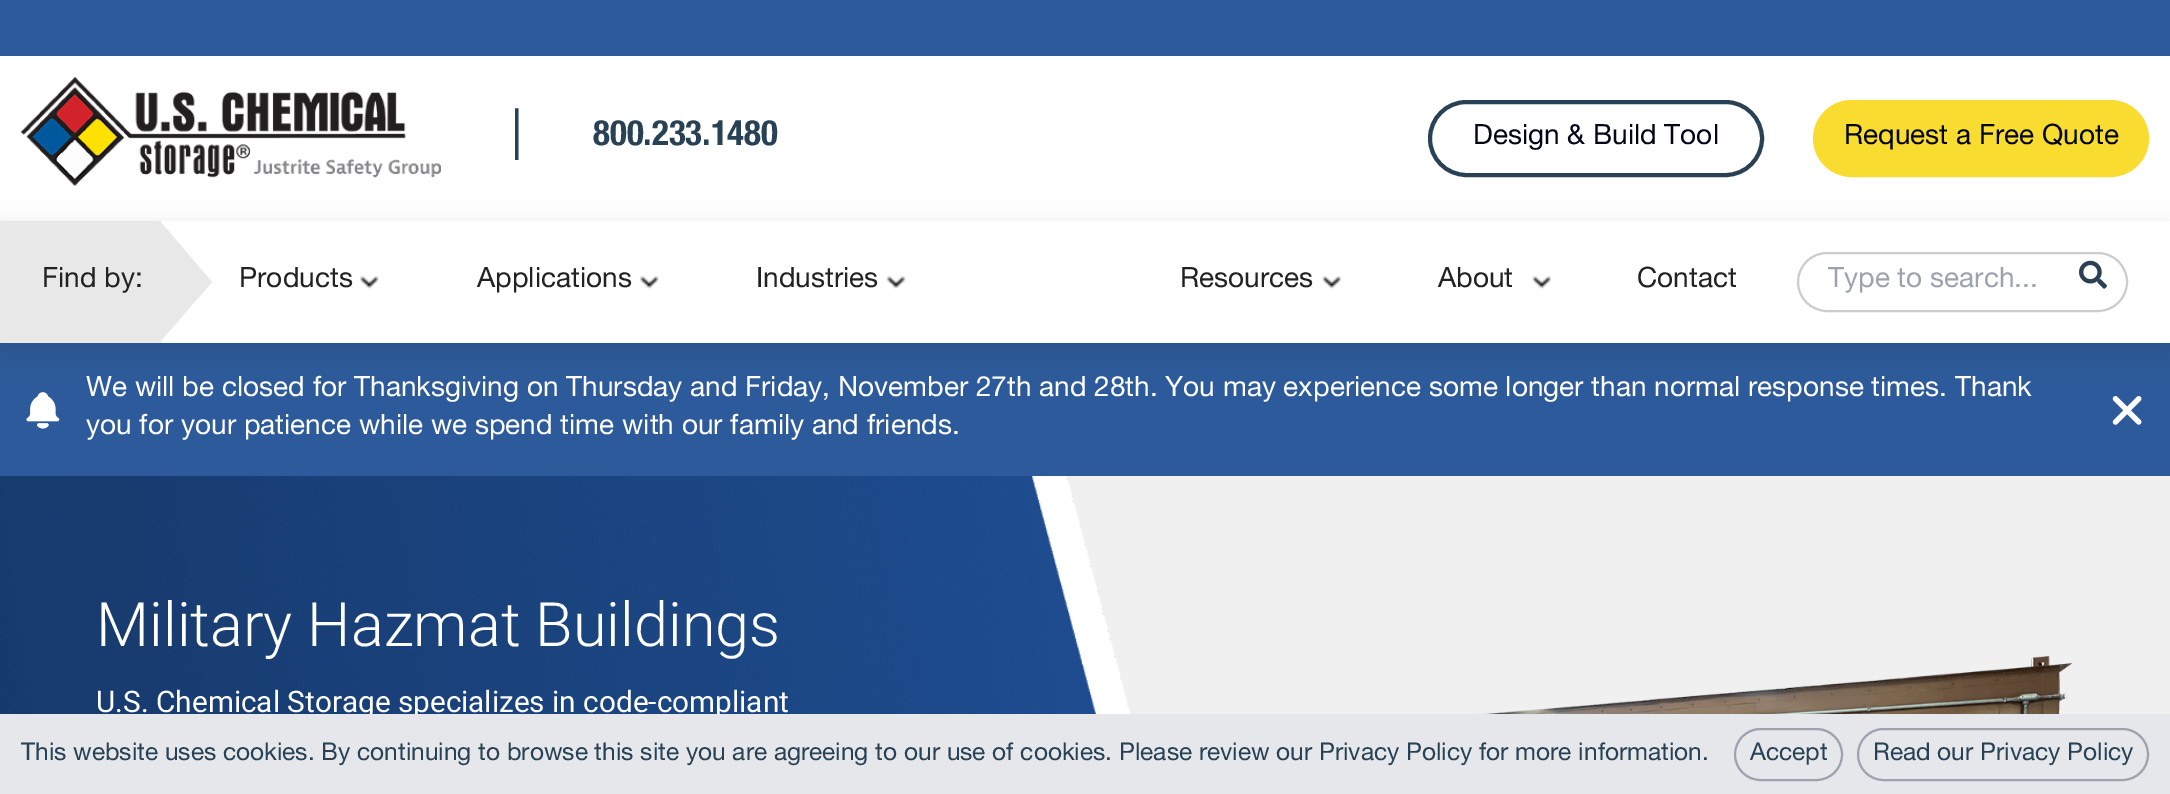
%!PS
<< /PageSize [2170 794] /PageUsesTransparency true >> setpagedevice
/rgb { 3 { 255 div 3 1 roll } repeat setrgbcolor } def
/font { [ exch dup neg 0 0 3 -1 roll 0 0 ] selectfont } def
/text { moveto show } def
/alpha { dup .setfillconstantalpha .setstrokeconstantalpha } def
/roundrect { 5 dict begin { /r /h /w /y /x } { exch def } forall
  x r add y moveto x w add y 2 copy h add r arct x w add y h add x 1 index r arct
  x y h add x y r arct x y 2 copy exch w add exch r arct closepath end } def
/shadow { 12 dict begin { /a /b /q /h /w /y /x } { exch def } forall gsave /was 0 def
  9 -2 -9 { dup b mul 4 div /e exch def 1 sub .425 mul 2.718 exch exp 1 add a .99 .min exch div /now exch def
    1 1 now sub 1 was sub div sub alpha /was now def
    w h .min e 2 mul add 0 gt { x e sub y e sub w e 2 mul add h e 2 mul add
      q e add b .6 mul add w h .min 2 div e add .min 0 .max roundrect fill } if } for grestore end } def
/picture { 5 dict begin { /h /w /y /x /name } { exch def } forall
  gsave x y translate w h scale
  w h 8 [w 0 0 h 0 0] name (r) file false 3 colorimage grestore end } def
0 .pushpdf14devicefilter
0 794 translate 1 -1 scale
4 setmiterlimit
255 255 255 rgb
0 0 2170 794 rectfill
45 90 154 rgb
0 0 2170 56 rectfill
232 232 232 rgb
0 221 42 122 rectfill
45 90 154 rgb
0 343 2170 133 rectfill
(img_07.rgb) 26 392 34 37 picture
gsave
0 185 moveto 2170 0 rlineto 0 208 rlineto -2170 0 rlineto closepath 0 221 moveto 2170 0 rlineto 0 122 rlineto -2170 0 rlineto closepath eoclip newpath
0 0 0 rgb
0 228 2170 122 0 14 0.1 shadow
grestore
(img_01.rgb) 21 77 420 109 picture
40 65 84 rgb
4 setlinewidth
1430 102 332 73 36.5 roundrect stroke
249 220 48 rgb
1815 102 332 73 36.5 roundrect gsave fill grestore
stroke
232 232 232 rgb
42 221 119 122 rectfill
159 343 moveto 0 -123 rlineto 53 62 rlineto closepath fill
(img_02.rgb) 360 276 19 13 picture
(img_03.rgb) 640 276 19 13 picture
(img_04.rgb) 886 276 20 13 picture
(img_05.rgb) 1322 276 19 13 picture
(img_05.rgb) 1532 276 19 13 picture
204 204 204 rgb
2 setlinewidth
1798 253 329 58 29 roundrect stroke
(img_06.rgb) 2079 260 28 29 picture
(img_08.rgb) 2112 396 30 29 picture
240 240 240 rgb
1032 476 1138 238 rectfill
(img_09.rgb) 0 476 1131 238 picture
(img_10.rgb) 1478 656 594 58 picture
/HelveticaNeue-Regular 52 font
40 65 84 rgb
(|) 511 149 text
/HelveticaNeue-Bold 35 font
(800.233.1480) 593 145 text
/HelveticaNeue-Regular 28 font
2 6 23 rgb
(Design & Build Tool) 1473 144 text
(Request a Free Quote) 1844 144 text
34 34 34 rgb
(Find by:) 42 287 text
(Products) 239 287 text
(Applications) 477 287 text
(Industries) 756 287 text
(Resources) 1180 287 text
(About) 1438 287 text
(Contact) 1637 287 text
156 163 175 rgb
(Type to search...) 1828 287 text
255 255 255 rgb
(We will be closed for Thanksgiving on Thursday and Friday, November 27th and 28th. You may experience some longer than normal response times. Thank) 86 396 text
(you for your patience while we spend time with our family and friends.) 86 434 text
/Roboto-Light 61.25 font
(Military Hazmat Buildings) 96 646 text
/Roboto-Regular 29.75 font
(U.S. Chemical Storage specializes in code-compliant) 96 712 text
229 231 235 rgb
0 714 2170 80 rectfill
/HelveticaNeue-Regular 24.5 font
40 65 84 rgb
(This website uses cookies. By continuing to browse this site you are agreeing to our use of cookies. Please review our Privacy Policy for more information.) 21 760 text
156 163 175 rgb
1735 729 107 51 25.5 roundrect stroke
40 65 84 rgb
(Accept) 1750 760 text
156 163 175 rgb
1858 729 290 51 25.5 roundrect stroke
40 65 84 rgb
(Read our Privacy Policy) 1873 760 text
.poppdf14devicefilter showpage
